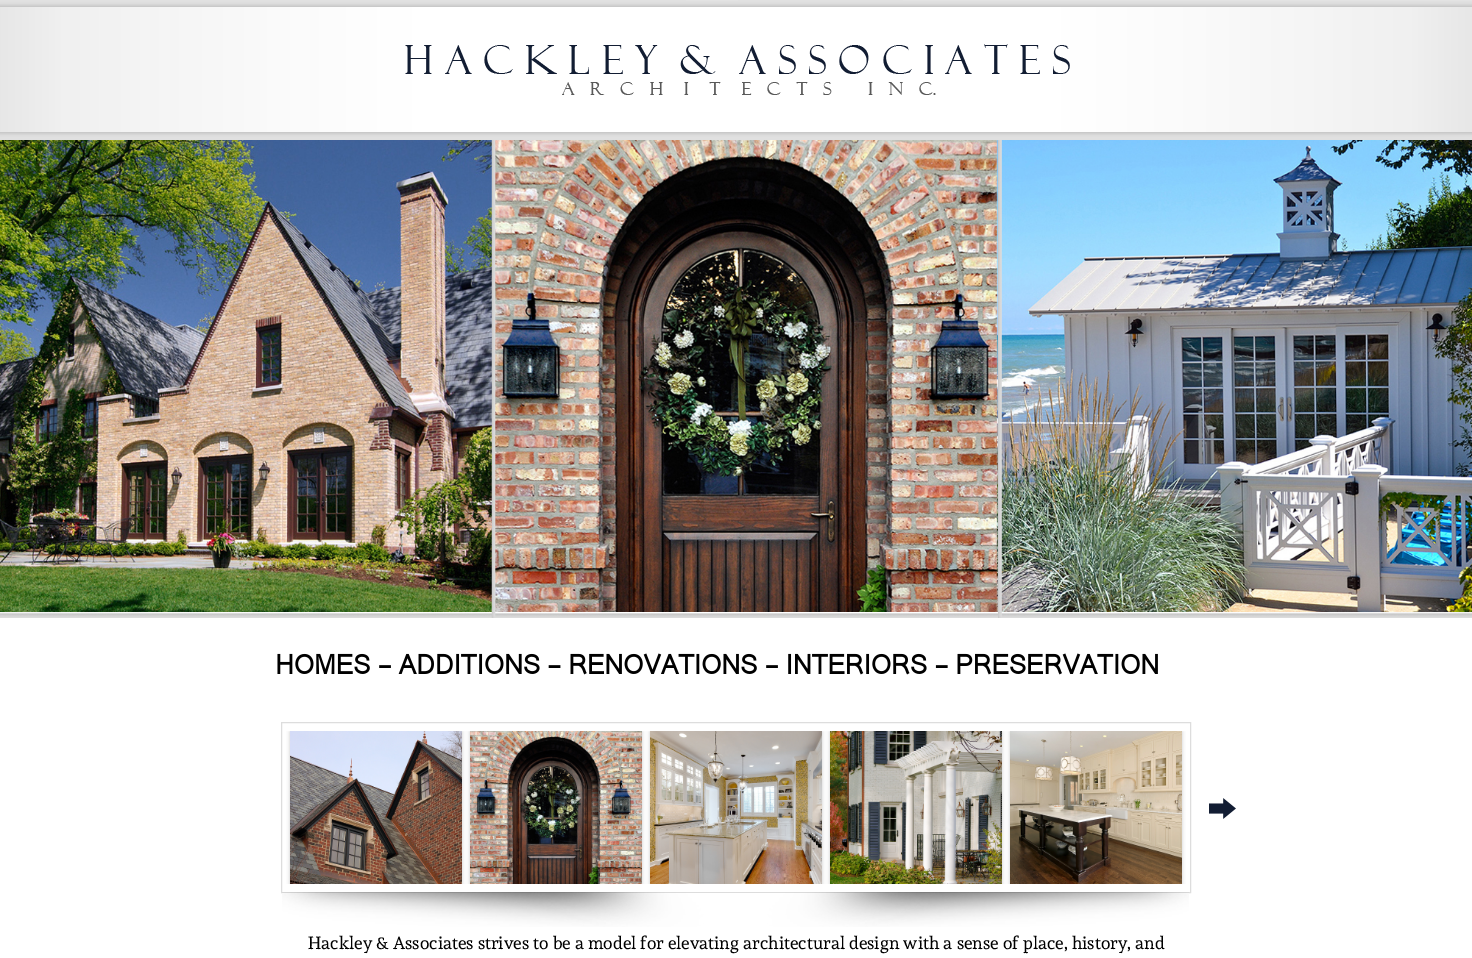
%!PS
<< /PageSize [1472 958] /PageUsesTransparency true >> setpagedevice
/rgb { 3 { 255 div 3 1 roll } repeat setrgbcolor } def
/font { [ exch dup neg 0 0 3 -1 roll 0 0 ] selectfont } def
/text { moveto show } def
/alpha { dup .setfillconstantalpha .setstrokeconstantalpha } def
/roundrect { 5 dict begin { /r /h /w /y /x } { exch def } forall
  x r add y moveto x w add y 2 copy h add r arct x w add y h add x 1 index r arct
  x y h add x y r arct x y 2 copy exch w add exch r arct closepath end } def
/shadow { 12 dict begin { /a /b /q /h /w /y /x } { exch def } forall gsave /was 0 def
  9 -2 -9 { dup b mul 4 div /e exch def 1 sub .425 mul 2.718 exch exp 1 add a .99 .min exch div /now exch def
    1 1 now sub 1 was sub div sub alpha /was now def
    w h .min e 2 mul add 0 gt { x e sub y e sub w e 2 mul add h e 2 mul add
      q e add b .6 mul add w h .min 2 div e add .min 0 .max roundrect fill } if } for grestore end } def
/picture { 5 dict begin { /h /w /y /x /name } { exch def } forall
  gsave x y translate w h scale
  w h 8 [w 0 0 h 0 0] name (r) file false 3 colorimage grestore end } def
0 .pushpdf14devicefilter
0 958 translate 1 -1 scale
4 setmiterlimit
255 255 255 rgb
0 0 1472 958 rectfill
(img_01.rgb) 0 0 1472 140 picture
(img_02.rgb) 405 44 665 51 picture
(img_03.rgb) 0 140 1472 478 picture
(img_04.rgb) 277 653 881 22 picture
221 221 221 rgb
281.5 722.5 909 170 rectstroke
gsave
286 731 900 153 rectclip
0 0 0 rgb
290 732 172 153 0 2 0.2 shadow
grestore
(img_05.rgb) 290 731 172 153 picture
gsave
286 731 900 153 rectclip
0 0 0 rgb
470 732 172 153 0 2 0.2 shadow
grestore
(img_06.rgb) 470 731 172 153 picture
gsave
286 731 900 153 rectclip
0 0 0 rgb
650 732 172 153 0 2 0.2 shadow
grestore
(img_07.rgb) 650 731 172 153 picture
gsave
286 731 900 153 rectclip
0 0 0 rgb
830 732 172 153 0 2 0.2 shadow
grestore
(img_08.rgb) 830 731 172 153 picture
gsave
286 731 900 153 rectclip
0 0 0 rgb
1010 732 172 153 0 2 0.2 shadow
grestore
(img_09.rgb) 1010 731 172 153 picture
(img_10.rgb) 1209 798 27 21 picture
(img_11.rgb) 282 892 907 35 picture
/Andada-Regular 17.6 font
0 0 0 rgb
(Hackley & Associates strives to be a model for elevating architectural design with a sense of place, history, and) 308 949 text
.poppdf14devicefilter showpage
